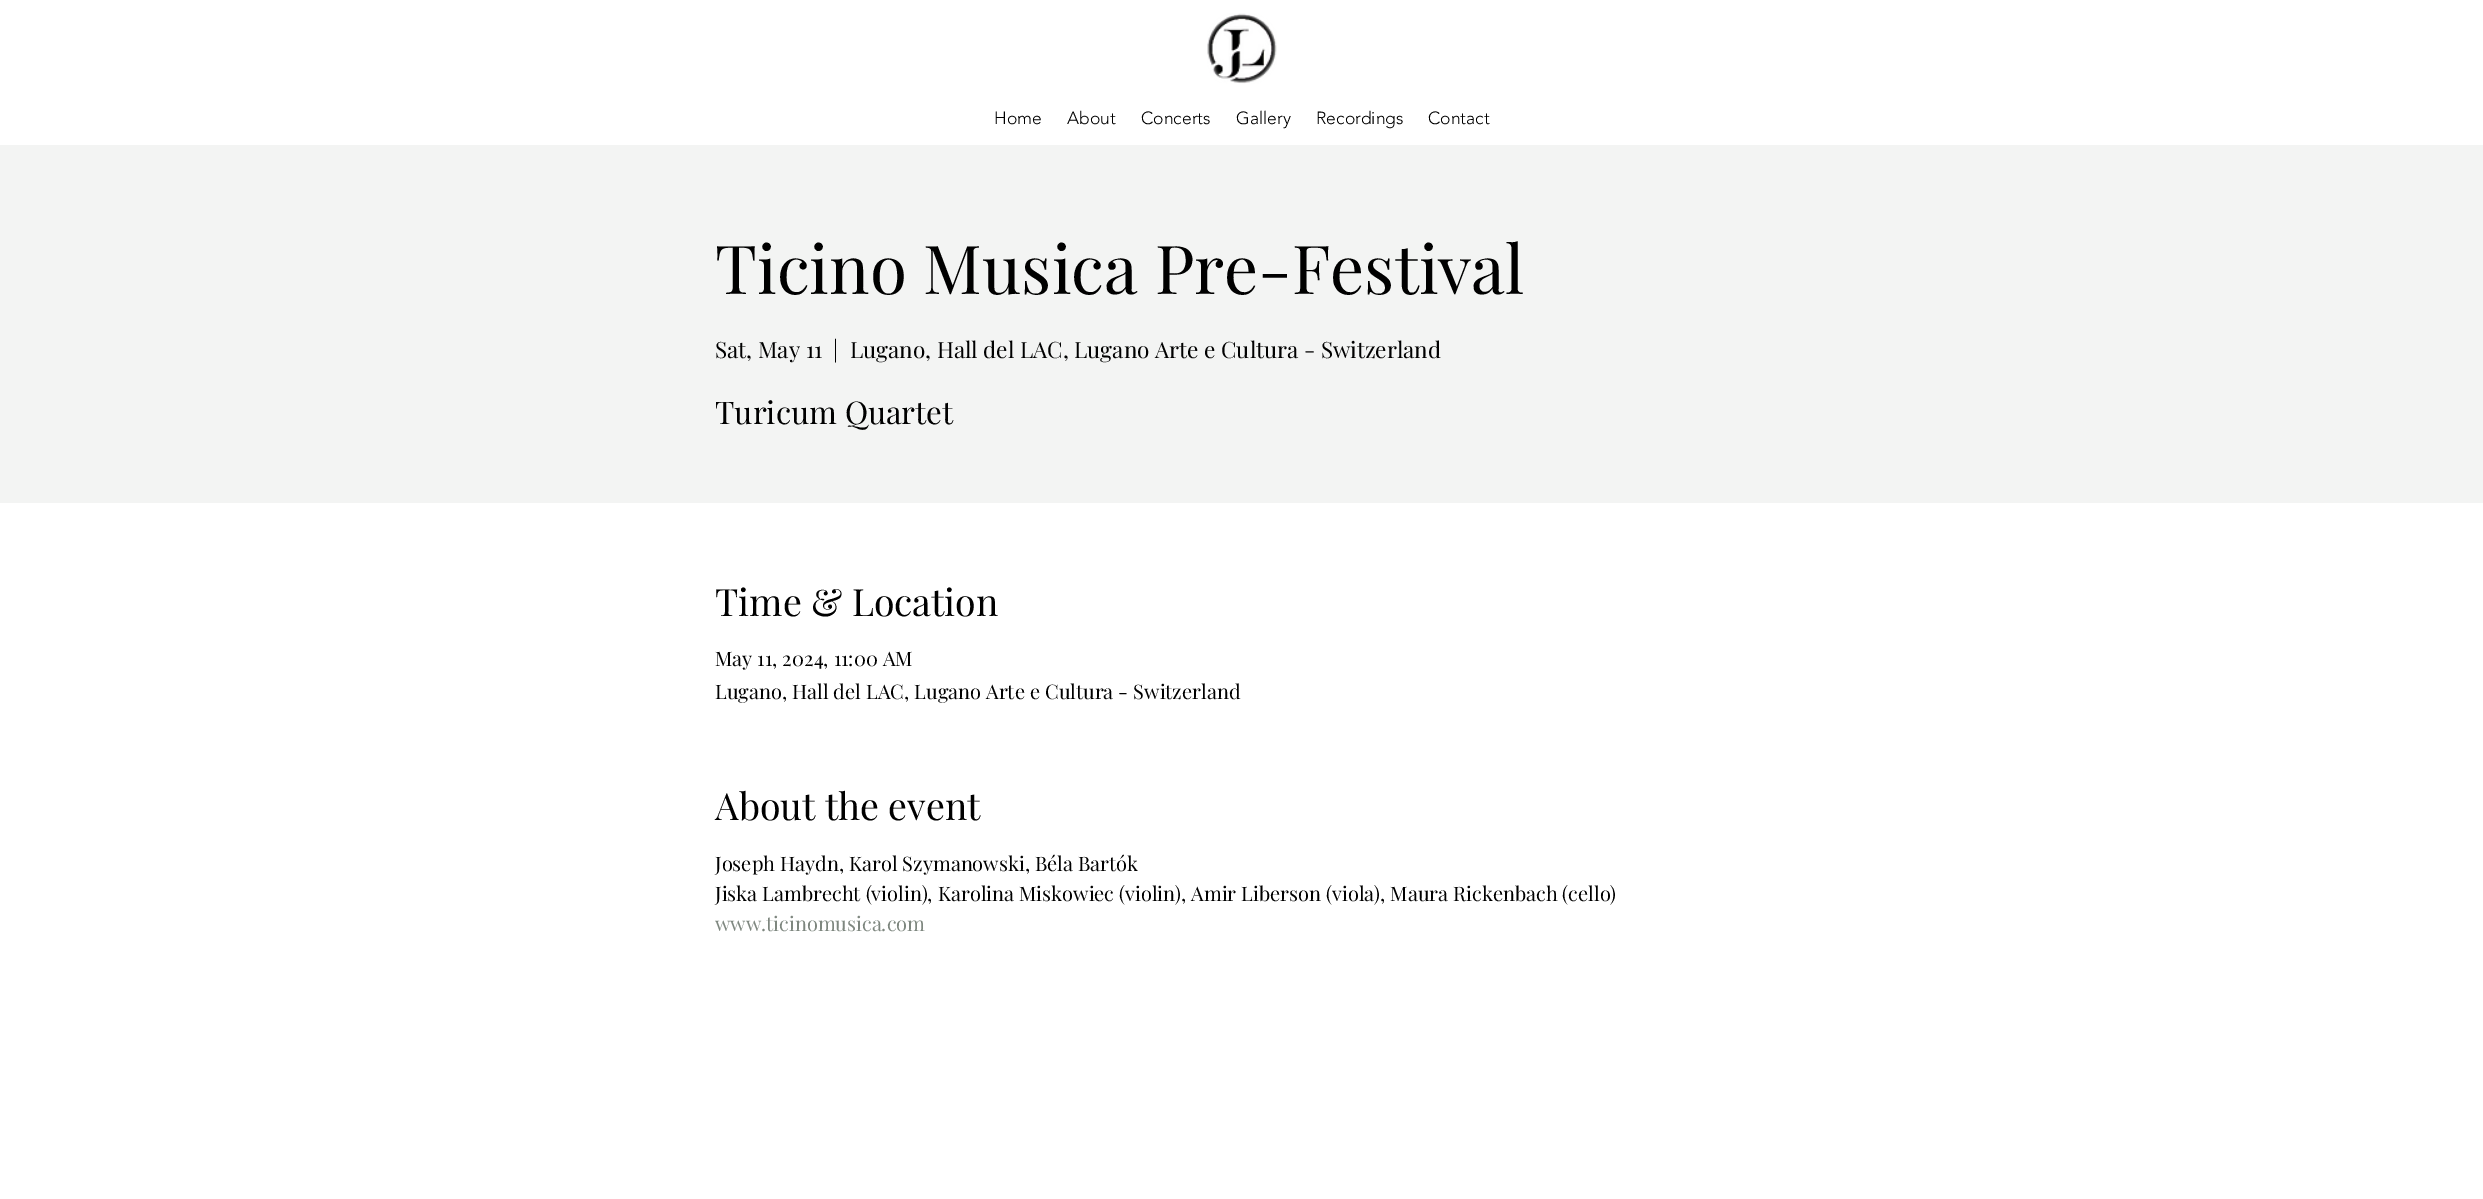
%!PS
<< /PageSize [2483 1199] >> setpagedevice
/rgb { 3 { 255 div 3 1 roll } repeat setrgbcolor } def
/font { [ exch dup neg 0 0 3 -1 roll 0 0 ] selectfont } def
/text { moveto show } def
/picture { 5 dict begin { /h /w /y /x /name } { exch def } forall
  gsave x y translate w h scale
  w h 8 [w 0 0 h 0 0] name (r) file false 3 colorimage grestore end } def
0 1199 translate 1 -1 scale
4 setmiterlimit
255 255 255 rgb
0 0 2483 1199 rectfill
(img_01.rgb) 1207 13 70 71 picture
243 244 243 rgb
0 145 2483 358 rectfill
/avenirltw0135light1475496-Light 17.5 font
0 0 0 rgb
(Home) 994 124 text
(About) 1067 124 text
(Concerts) 1141 124 text
(Gallery) 1236 124 text
(Recordings) 1316 124 text
(Contact) 1428 124 text
/PlayfairDisplay-Regular 67.5 font
(Ticino Musica Pre-Festival) 715 294 text
/PlayfairDisplay-Regular 22.5 font
(Sat, May 11) 715 358 text
(|) 833 358 text
(Lugano, Hall del LAC, Lugano Arte e Cultura - Switzerland) 850 358 text
/PlayfairDisplay-Regular 31.25 font
(Turicum Quartet) 715 424 text
/PlayfairDisplay-Regular 37.5 font
(Time & Location) 715 616 text
/PlayfairDisplay-Regular 20 font
(May 11, 2024, 11:00 AM) 715 666 text
(Lugano, Hall del LAC, Lugano Arte e Cultura - Switzerland) 715 699 text
/PlayfairDisplay-Regular 37.5 font
(About the event) 715 820 text
/PlayfairDisplay-Regular 20 font
(Joseph Haydn, Karol Szymanowski, Béla Bartók) 715 871 text
(Jiska Lambrecht \(violin\), Karolina Miskowiec \(violin\), Amir Liberson \(viola\), Maura Rickenbach \(cello\)) 715 901 text
126 135 127 rgb
(www.ticinomusica.com) 715 931 text
showpage
